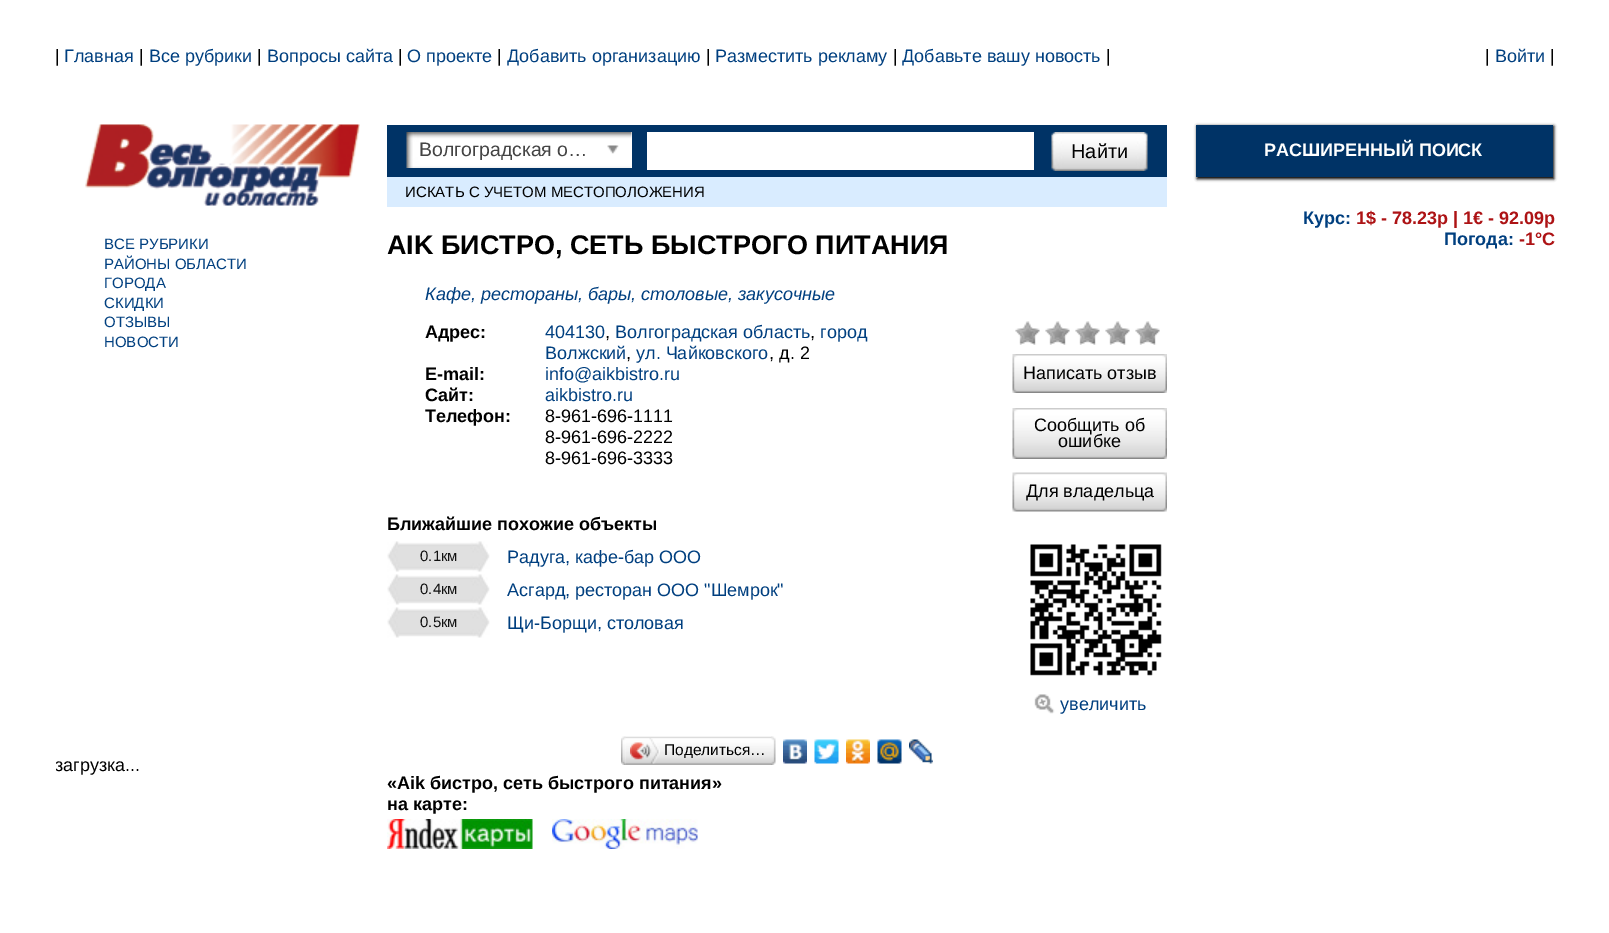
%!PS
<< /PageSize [1609 933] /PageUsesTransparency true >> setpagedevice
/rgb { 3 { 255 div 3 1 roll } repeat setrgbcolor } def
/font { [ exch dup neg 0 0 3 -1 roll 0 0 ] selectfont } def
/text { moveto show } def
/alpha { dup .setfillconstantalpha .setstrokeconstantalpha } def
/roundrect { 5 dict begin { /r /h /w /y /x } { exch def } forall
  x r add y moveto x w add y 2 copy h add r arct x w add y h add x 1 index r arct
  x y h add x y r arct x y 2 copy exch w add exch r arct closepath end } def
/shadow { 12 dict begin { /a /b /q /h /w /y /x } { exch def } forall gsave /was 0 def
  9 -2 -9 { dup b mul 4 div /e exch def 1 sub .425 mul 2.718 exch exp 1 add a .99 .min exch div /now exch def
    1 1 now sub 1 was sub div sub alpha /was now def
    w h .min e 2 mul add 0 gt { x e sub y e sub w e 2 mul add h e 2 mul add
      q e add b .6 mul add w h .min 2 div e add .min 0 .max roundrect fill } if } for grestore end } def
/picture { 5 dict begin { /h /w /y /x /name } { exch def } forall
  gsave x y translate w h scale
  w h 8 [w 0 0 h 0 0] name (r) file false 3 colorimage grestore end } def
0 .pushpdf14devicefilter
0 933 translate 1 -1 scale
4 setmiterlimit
255 255 255 rgb
0 0 1609 933 rectfill
(img_01.rgb) 85 124 275 82 picture
0 51 102 rgb
387 125 780 52 rectfill
255 255 255 rgb
631 132 1 36 rectfill
(img_02.rgb) 406 132 226 36 picture
(img_03.rgb) 607 145 12 9 picture
647 132 387 38 rectfill
(img_04.rgb) 1051 132 97 39 picture
217 236 255 rgb
387 177 780 30 rectfill
(img_05.rgb) 387 541 103 31 picture
(img_05.rgb) 387 574 103 31 picture
(img_05.rgb) 387 607 103 31 picture
(img_06.rgb) 1015 321 25 24 picture
(img_07.rgb) 1045 321 25 24 picture
(img_06.rgb) 1075 321 25 24 picture
(img_06.rgb) 1105 321 25 24 picture
(img_07.rgb) 1135 321 25 24 picture
(img_08.rgb) 1012 354 155 39 picture
(img_09.rgb) 1012 408 155 51 picture
(img_10.rgb) 1012 472 155 40 picture
(img_11.rgb) 1030 544 132 132 picture
(img_12.rgb) 1034 694 21 20 picture
(img_13.rgb) 625 736 146 29 picture
(img_14.rgb) 621 736 5 29 picture
(img_15.rgb) 630 738 30 26 picture
(img_16.rgb) 771 736 5 29 picture
(img_17.rgb) 783 739 24 25 picture
(img_18.rgb) 814 739 25 25 picture
(img_19.rgb) 846 739 24 25 picture
(img_20.rgb) 877 739 25 25 picture
(img_21.rgb) 909 739 24 25 picture
(img_22.rgb) 387 819 146 30 picture
(img_23.rgb) 552 819 146 30 picture
0 0 0 rgb
1197 126 357 53 0 1.5 1 shadow
0 51 102 rgb
1196 125 357 52 rectfill
/LiberationSans-Regular 18 font
0 0 0 rgb
(|) 55 62 text
0 63 127 rgb
(Главная) 64 62 text
0 0 0 rgb
(|) 139 62 text
0 63 127 rgb
(Все рубрики) 149 62 text
0 0 0 rgb
(|) 257 62 text
0 63 127 rgb
(Вопросы сайта) 267 62 text
0 0 0 rgb
(|) 398 62 text
0 63 127 rgb
(О проекте) 407 62 text
0 0 0 rgb
(|) 497 62 text
0 63 127 rgb
(Добавить организацию) 507 62 text
0 0 0 rgb
(|) 706 62 text
0 63 127 rgb
(Разместить рекламу) 715 62 text
0 0 0 rgb
(|) 893 62 text
0 63 127 rgb
(Добавьте вашу новость) 902 62 text
0 0 0 rgb
(|) 1106 62 text
(|) 1485 62 text
0 63 127 rgb
(Войти) 1495 62 text
0 0 0 rgb
(|) 1550 62 text
/LiberationSans-Regular 15 font
0 63 127 rgb
(ВСЕ РУБРИКИ) 104 249 text
(РАЙОНЫ ОБЛАСТИ) 104 269 text
(ГОРОДА) 104 288 text
(СКИДКИ) 104 308 text
(ОТЗЫВЫ) 104 327 text
(НОВОСТИ) 104 347 text
gsave
56 755 304 21 rectclip
/LiberationSans-Regular 18 font
0 0 0 rgb
(загрузка...) 55 771 text
grestore
/LiberationSans-Regular 19.5 font
68 68 68 rgb
(Волгоградская о…) 419 156 text
/LiberationSans-Regular 20 font
0 0 0 rgb
(Найти) 1071 158 text
/LiberationSans-Regular 15 font
(ИСКАТЬ С УЧЕТОМ МЕСТОПОЛОЖЕНИЯ) 405 197 text
/LiberationSans-Bold 27 font
(AIK БИСТРО, СЕТЬ БЫСТРОГО ПИТАНИЯ) 387 254 text
/LiberationSans-Italic 18 font
0 63 127 rgb
(Кафе, рестораны, бары, столовые, закусочные) 425 300 text
/LiberationSans-Bold 18 font
0 0 0 rgb
(Адрес:) 425 338 text
/LiberationSans-Regular 18 font
0 63 127 rgb
(404130) 545 338 text
0 0 0 rgb
(,) 605 338 text
0 63 127 rgb
(Волгоградская область) 615 338 text
0 0 0 rgb
(,) 810 338 text
0 63 127 rgb
(город) 820 338 text
(Волжский) 545 359 text
0 0 0 rgb
(,) 626 359 text
0 63 127 rgb
(ул. Чайковского) 636 359 text
0 0 0 rgb
(, д. 2) 769 359 text
/LiberationSans-Bold 18 font
(E-mail:) 425 380 text
/LiberationSans-Regular 18 font
0 63 127 rgb
(info@aikbistro.ru) 545 380 text
/LiberationSans-Bold 18 font
0 0 0 rgb
(Сайт:) 425 401 text
/LiberationSans-Regular 18 font
0 63 127 rgb
(aikbistro.ru) 545 401 text
/LiberationSans-Bold 18 font
0 0 0 rgb
(Телефон:) 425 422 text
/LiberationSans-Regular 18 font
(8-961-696-1111) 545 422 text
(8-961-696-2222) 545 443 text
(8-961-696-3333) 545 464 text
/LiberationSans-Bold 18 font
(Ближайшие похожие объекты) 387 530 text
/LiberationSans-Regular 15 font
17 17 17 rgb
(0.1км) 420 561 text
/LiberationSans-Regular 18 font
0 63 127 rgb
(Радуга, кафе-бар ООО) 507 563 text
/LiberationSans-Regular 15 font
17 17 17 rgb
(0.4км) 420 594 text
/LiberationSans-Regular 18 font
0 63 127 rgb
(Асгард, ресторан ООО "Шемрок") 507 596 text
/LiberationSans-Regular 15 font
17 17 17 rgb
(0.5км) 420 627 text
/LiberationSans-Regular 18 font
0 63 127 rgb
(Щи-Борщи, столовая) 507 629 text
0 0 0 rgb
(Написать отзыв) 1023 379 text
(Сообщить об) 1034 431 text
(ошибке) 1058 447 text
(Для владельца) 1026 497 text
0 63 127 rgb
(увеличить) 1060 710 text
/LiberationSans-Regular 15.5 font
0 0 0 rgb
(Поделиться…) 664 755 text
/LiberationSans-Bold 18 font
(«Aik бистро, сеть быстрого питания») 387 789 text
(на карте:) 387 810 text
255 255 255 rgb
(РАСШИРЕННЫЙ ПОИСК) 1264 156 text
0 63 127 rgb
(Курс:) 1303 224 text
173 19 21 rgb
(1$ - 78.23р | 1€ - 92.09р) 1356 224 text
0 63 127 rgb
(Погода:) 1444 245 text
173 19 21 rgb
(-1°C) 1519 245 text
.poppdf14devicefilter showpage
